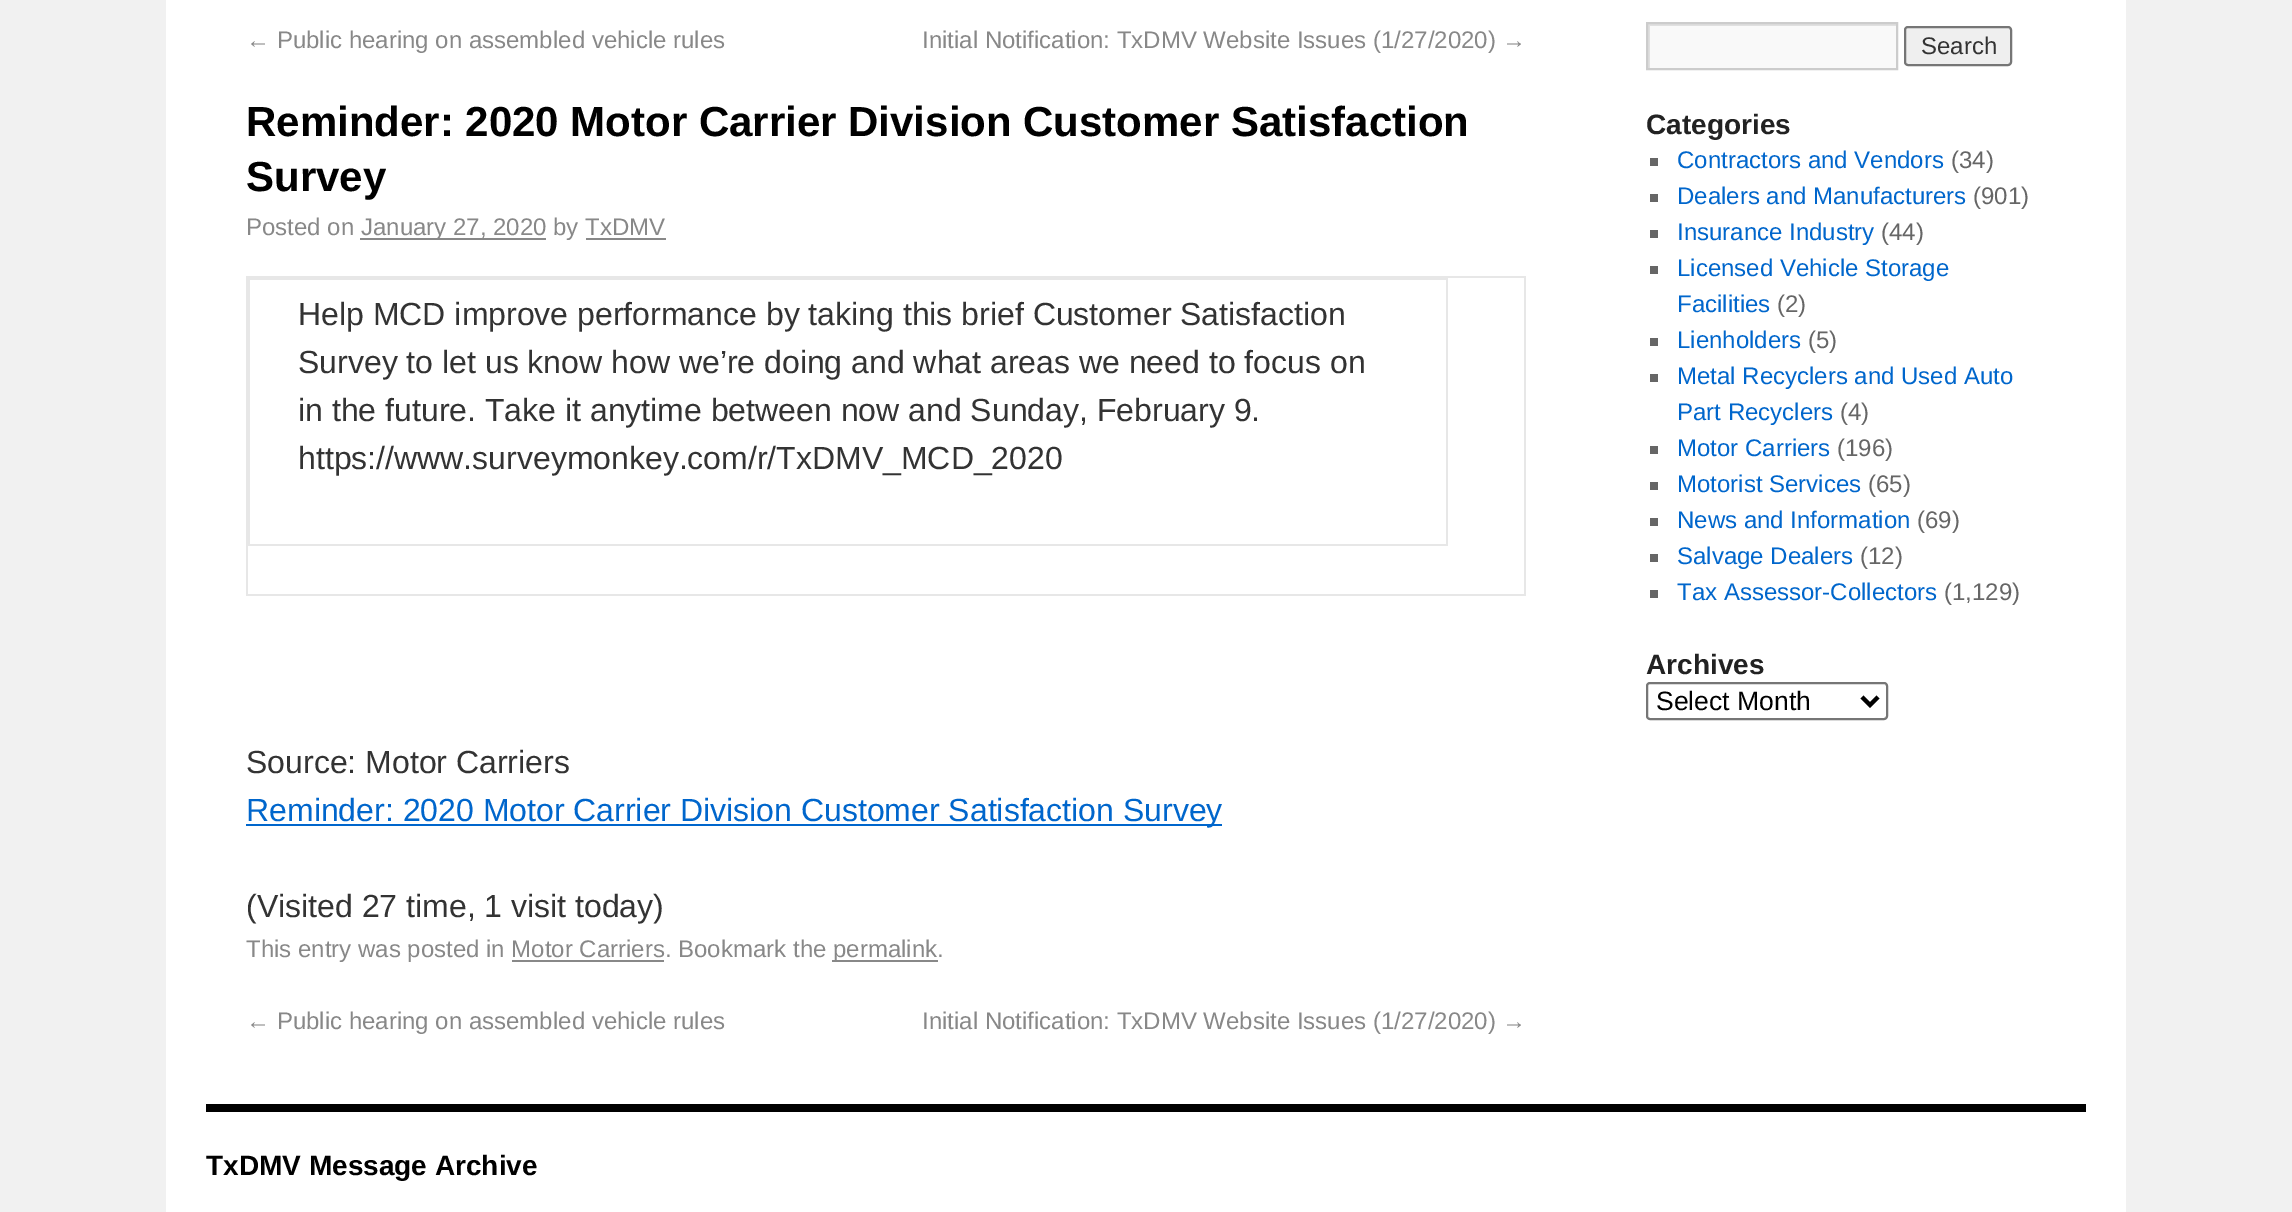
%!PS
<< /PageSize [2292 1212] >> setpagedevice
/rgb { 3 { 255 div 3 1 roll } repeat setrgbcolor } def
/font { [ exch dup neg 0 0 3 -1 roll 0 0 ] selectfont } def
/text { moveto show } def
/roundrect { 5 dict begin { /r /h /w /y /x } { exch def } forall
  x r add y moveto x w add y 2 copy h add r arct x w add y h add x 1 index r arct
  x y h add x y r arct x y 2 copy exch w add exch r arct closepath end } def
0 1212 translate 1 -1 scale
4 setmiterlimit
241 241 241 rgb
0 0 2292 1212 rectfill
255 255 255 rgb
166 0 1960 1212 rectfill
136 136 136 rgb
360 238 186 2 rectfill
586 238 80 2 rectfill
231 231 231 rgb
246 276 1280 2 rectfill
1524 276 2 320 rectfill
246 594 1280 2 rectfill
246 276 2 320 rectfill
248 278 1200 2 rectfill
1446 278 2 268 rectfill
248 544 1200 2 rectfill
248 278 2 268 rectfill
0 102 204 rgb
246 824 976 2 rectfill
136 136 136 rgb
832 960 106 2 rectfill
512 960 152 2 rectfill
249 249 249 rgb
1650 26 246 42 rectfill
gsave
1648 24 248 44 rectclip
224 224 224 rgb
1450 -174 moveto 644 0 rlineto 0 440 rlineto -644 0 rlineto closepath 1650 26 moveto 248 0 rlineto 0 44 rlineto -248 0 rlineto closepath eofill
grestore
204 204 204 rgb
2 setlinewidth
1647 23 250 46 rectstroke
239 239 239 rgb
1905 27 106 38 3 roundrect gsave fill grestore
118 118 118 rgb
stroke
102 102 102 rgb
1650 158 8 8 rectfill
1650 194 8 8 rectfill
1650 230 8 8 rectfill
1650 266 8 8 rectfill
1650 338 8 8 rectfill
1650 374 8 8 rectfill
1650 446 8 8 rectfill
1650 482 8 8 rectfill
1650 518 8 8 rectfill
1650 554 8 8 rectfill
1650 590 8 8 rectfill
118 118 118 rgb
1647 683 240 36 3 roundrect stroke
0 0 0 rgb
4 setlinewidth
1862 697 moveto 8 8 rlineto 8 -8 rlineto stroke
206 1104 1880 8 rectfill
/LiberationSans-Regular 24 font
136 136 136 rgb
(← Public hearing on assembled vehicle rules) 246 48 text
(Initial Notification: TxDMV Website Issues \(1/27/2020\) →) 922 48 text
/LiberationSans-Bold 42 font
0 0 0 rgb
(Reminder: 2020 Motor Carrier Division Customer Satisfaction) 246 136 text
(Survey) 246 191 text
/LiberationSans-Regular 24 font
136 136 136 rgb
(Posted on) 246 235 text
(January 27, 2020 by TxDMV) 361 235 text
/LiberationSans-Regular 32 font
51 51 51 rgb
(Help MCD improve performance by taking this brief Customer Satisfaction) 298 325 text
(Survey to let us know how we’re doing and what areas we need to focus on) 298 373 text
(in the future. Take it anytime between now and Sunday, February 9.) 298 421 text
(https://www.surveymonkey.com/r/TxDMV_MCD_2020) 298 469 text
(Source: Motor Carriers) 246 773 text
0 102 204 rgb
(Reminder: 2020 Motor Carrier Division Customer Satisfaction Survey) 246 821 text
51 51 51 rgb
(\(Visited 27 time, 1 visit today\)) 246 917 text
/LiberationSans-Regular 24 font
136 136 136 rgb
(This entry was posted in Motor Carriers. Bookmark the) 246 957 text
(permalink.) 833 957 text
(← Public hearing on assembled vehicle rules) 246 1029 text
(Initial Notification: TxDMV Website Issues \(1/27/2020\) →) 922 1029 text
51 51 51 rgb
(Search) 1921 54 text
/LiberationSans-Bold 28 font
34 34 34 rgb
(Categories) 1646 134 text
/LiberationSans-Regular 24 font
0 102 204 rgb
(Contractors and Vendors) 1677 168 text
102 102 102 rgb
(\(34\)) 1951 168 text
0 102 204 rgb
(Dealers and Manufacturers) 1677 204 text
102 102 102 rgb
(\(901\)) 1973 204 text
0 102 204 rgb
(Insurance Industry) 1677 240 text
102 102 102 rgb
(\(44\)) 1881 240 text
0 102 204 rgb
(Licensed Vehicle Storage) 1677 276 text
(Facilities) 1677 312 text
102 102 102 rgb
(\(2\)) 1777 312 text
0 102 204 rgb
(Lienholders) 1677 348 text
102 102 102 rgb
(\(5\)) 1808 348 text
0 102 204 rgb
(Metal Recyclers and Used Auto) 1677 384 text
(Part Recyclers) 1677 420 text
102 102 102 rgb
(\(4\)) 1840 420 text
0 102 204 rgb
(Motor Carriers) 1677 456 text
102 102 102 rgb
(\(196\)) 1837 456 text
0 102 204 rgb
(Motorist Services) 1677 492 text
102 102 102 rgb
(\(65\)) 1868 492 text
0 102 204 rgb
(News and Information) 1677 528 text
102 102 102 rgb
(\(69\)) 1917 528 text
0 102 204 rgb
(Salvage Dealers) 1677 564 text
102 102 102 rgb
(\(12\)) 1860 564 text
0 102 204 rgb
(Tax Assessor-Collectors) 1677 600 text
102 102 102 rgb
(\(1,129\)) 1944 600 text
/LiberationSans-Bold 28 font
34 34 34 rgb
(Archives) 1646 674 text
/LiberationSans-Regular 26.5 font
0 0 0 rgb
(Select Month) 1656 710 text
/LiberationSans-Bold 28 font
(TxDMV Message Archive) 206 1175 text
showpage
